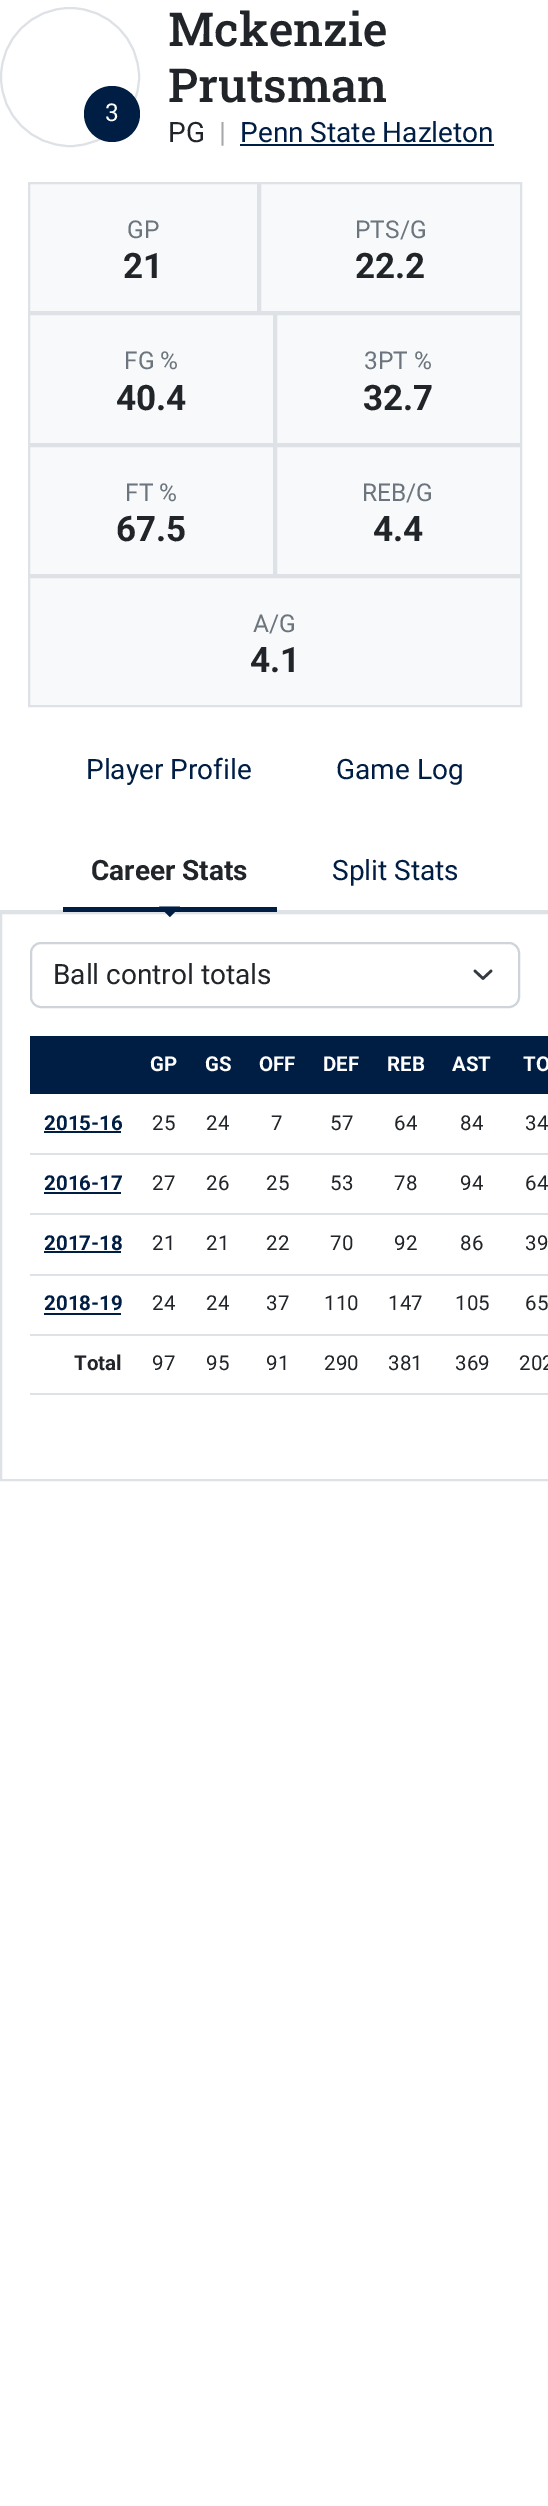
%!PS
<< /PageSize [548 2506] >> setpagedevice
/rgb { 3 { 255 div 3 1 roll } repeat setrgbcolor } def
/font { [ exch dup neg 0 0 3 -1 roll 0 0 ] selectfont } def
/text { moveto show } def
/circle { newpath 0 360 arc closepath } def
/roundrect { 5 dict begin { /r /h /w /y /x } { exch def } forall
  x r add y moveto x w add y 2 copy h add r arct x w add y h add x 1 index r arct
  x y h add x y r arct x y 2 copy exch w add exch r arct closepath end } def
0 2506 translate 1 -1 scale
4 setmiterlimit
255 255 255 rgb
0 0 548 2506 rectfill
222 226 230 rgb
2 setlinewidth
70 77 69 circle stroke
0 30 68 rgb
112 114 28 circle fill
240 144 254 2 rectfill
248 249 250 rgb
30 184 490 521 rectfill
222 226 230 rgb
29 183 229 129 rectstroke
260 183 261 129 rectstroke
29 314 245 130 rectstroke
276 314 245 130 rectstroke
29 446 245 129 rectstroke
276 446 245 129 rectstroke
29 577 492 129 rectstroke
0 910 548 2 rectfill
0 30 68 rgb
63 907 214 5 rectfill
222 226 230 rgb
1 913 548 567 rectstroke
0 30 68 rgb
159 906.5 moveto 21 0 rlineto -10 10.5 rlineto closepath fill
52 58 64 rgb
2.6 setlinewidth
1 setlinecap
1 setlinejoin
475 971 moveto 8 7.5 rlineto 8 -7.5 rlineto stroke
206 212 218 rgb
2 setlinewidth
0 setlinecap
0 setlinejoin
31 943 488 64 10 roundrect stroke
0 30 68 rgb
30 1036 518 58 rectfill
44 1131 77 2 rectfill
222 226 230 rgb
30 1153 518 2 rectfill
0 30 68 rgb
44 1192 77 2 rectfill
222 226 230 rgb
30 1213 518 2 rectfill
0 30 68 rgb
44 1251 77 2 rectfill
222 226 230 rgb
30 1274 518 2 rectfill
0 30 68 rgb
44 1313 77 2 rectfill
222 226 230 rgb
30 1334 518 2 rectfill
30 1393 518 2 rectfill
/Roboto-Regular 24.5 font
255 255 255 rgb
(3) 105 121 text
/RobotoSlab-Medium 46.75 font
33 37 41 rgb
(Mckenzie) 168 46 text
(Prutsman) 168 102 text
/Roboto-Regular 28 font
(PG) 168 142 text
166 168 169 rgb
(|) 219 142 text
0 30 68 rgb
(Penn State Hazleton) 240 142 text
/Roboto-Regular 24.5 font
108 117 125 rgb
(GP) 127 238 text
/Roboto-Bold 35 font
33 37 41 rgb
(21) 123 278 text
/Roboto-Regular 24.5 font
108 117 125 rgb
(PTS/G) 355 238 text
/Roboto-Bold 35 font
33 37 41 rgb
(22.2) 355 278 text
/Roboto-Regular 24.5 font
108 117 125 rgb
(FG %) 124 369 text
/Roboto-Bold 35 font
33 37 41 rgb
(40.4) 116 410 text
/Roboto-Regular 24.5 font
108 117 125 rgb
(3PT %) 364 369 text
/Roboto-Bold 35 font
33 37 41 rgb
(32.7) 363 410 text
/Roboto-Regular 24.5 font
108 117 125 rgb
(FT %) 125 501 text
/Roboto-Bold 35 font
33 37 41 rgb
(67.5) 116 541 text
/Roboto-Regular 24.5 font
108 117 125 rgb
(REB/G) 362 501 text
/Roboto-Bold 35 font
33 37 41 rgb
(4.4) 373 541 text
/Roboto-Regular 24.5 font
108 117 125 rgb
(A/G) 253 632 text
/Roboto-Bold 35 font
33 37 41 rgb
(4.1) 250 672 text
/Roboto-Regular 28 font
0 30 68 rgb
(Player Profile) 86 779 text
(Game Log) 336 779 text
/Roboto-Bold 28 font
33 37 41 rgb
(Career Stats) 91 880 text
/Roboto-Regular 28 font
0 30 68 rgb
(Split Stats) 332 880 text
33 37 41 rgb
(Ball control totals) 53 984 text
/Roboto-Bold 20.5 font
255 255 255 rgb
(GP) 150 1071 text
(GS) 205 1071 text
(OFF) 259 1071 text
(DEF) 323 1071 text
(REB) 387 1071 text
(AST) 452 1071 text
(TO) 523 1071 text
0 30 68 rgb
(2015-16) 44 1130 text
/Roboto-Regular 20.5 font
33 37 41 rgb
(25) 152 1130 text
(24) 206 1130 text
(7) 271 1130 text
(57) 330 1130 text
(64) 394 1130 text
(84) 460 1130 text
(34) 525 1130 text
/Roboto-Bold 20.5 font
0 30 68 rgb
(2016-17) 44 1190 text
/Roboto-Regular 20.5 font
33 37 41 rgb
(27) 152 1190 text
(26) 206 1190 text
(25) 266 1190 text
(53) 330 1190 text
(78) 394 1190 text
(94) 460 1190 text
(64) 525 1190 text
/Roboto-Bold 20.5 font
0 30 68 rgb
(2017-18) 44 1250 text
/Roboto-Regular 20.5 font
33 37 41 rgb
(21) 152 1250 text
(21) 206 1250 text
(22) 266 1250 text
(70) 330 1250 text
(92) 394 1250 text
(86) 460 1250 text
(39) 525 1250 text
/Roboto-Bold 20.5 font
0 30 68 rgb
(2018-19) 44 1310 text
/Roboto-Regular 20.5 font
33 37 41 rgb
(24) 152 1310 text
(24) 206 1310 text
(37) 266 1310 text
(110) 324 1310 text
(147) 388 1310 text
(105) 455 1310 text
(65) 525 1310 text
/Roboto-Bold 20.5 font
(Total) 74 1370 text
/Roboto-Regular 20.5 font
(97) 152 1370 text
(95) 206 1370 text
(91) 266 1370 text
(290) 324 1370 text
(381) 388 1370 text
(369) 455 1370 text
(202) 519 1370 text
showpage
